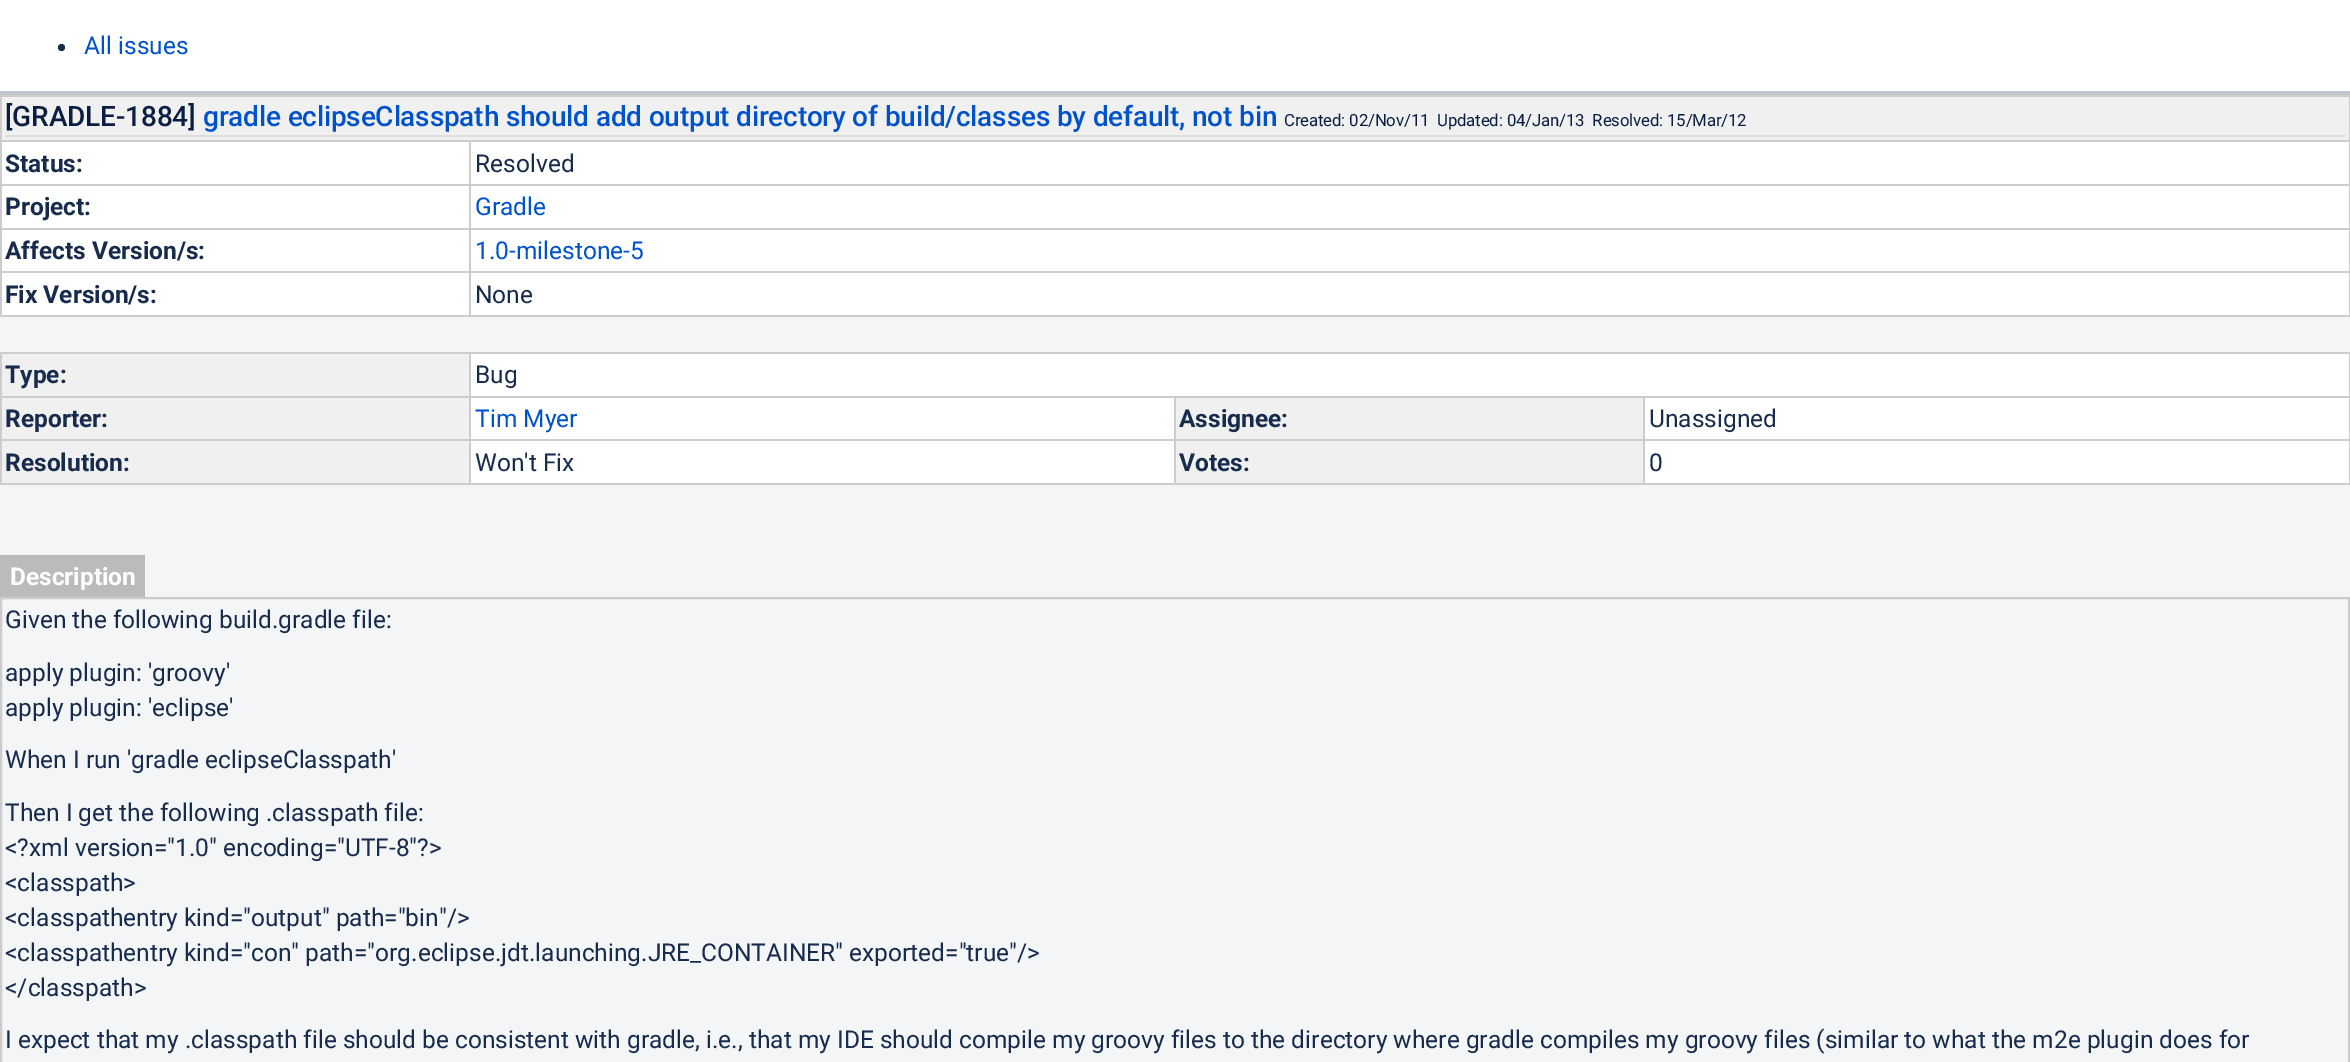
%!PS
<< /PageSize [2350 1062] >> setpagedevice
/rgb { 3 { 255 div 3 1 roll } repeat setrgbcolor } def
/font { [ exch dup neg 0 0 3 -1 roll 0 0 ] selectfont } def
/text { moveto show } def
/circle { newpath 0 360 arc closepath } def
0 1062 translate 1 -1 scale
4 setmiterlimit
244 245 247 rgb
0 0 2350 1062 rectfill
255 255 255 rgb
0 0 2350 91 rectfill
193 199 208 rgb
0 91 2350 4 rectfill
23 43 77 rgb
61.5 47.5 3.5 circle fill
255 255 255 rgb
2 142 2347 173 rectfill
240 240 240 rgb
2 97 2347 43 rectfill
204 204 204 rgb
0 95 2350 2 rectfill
469 140 1881 2 rectfill
469 184 1881 2 rectfill
469 228 1881 2 rectfill
469 271 1881 2 rectfill
2349 271 1 46 rectfill
2349 228 1 45 rectfill
2349 184 1 45 rectfill
2349 140 1 46 rectfill
2349 95 1 47 rectfill
469 315 1881 2 rectfill
469 271 2 46 rectfill
0 271 471 2 rectfill
469 228 2 45 rectfill
0 228 471 2 rectfill
469 184 2 45 rectfill
0 184 471 2 rectfill
469 140 2 46 rectfill
0 140 471 2 rectfill
0 315 471 2 rectfill
0 271 2 46 rectfill
0 228 2 45 rectfill
0 184 2 45 rectfill
0 140 2 46 rectfill
0 95 2 47 rectfill
221 221 221 rgb
5 135 2340 2 rectfill
255 255 255 rgb
471 354 1878 129 rectfill
240 240 240 rgb
2 354 467 42 rectfill
204 204 204 rgb
469 352 1881 2 rectfill
1643 396 707 2 rectfill
1643 439 707 2 rectfill
2349 439 1 46 rectfill
1643 483 707 2 rectfill
1643 439 2 46 rectfill
1174 439 471 2 rectfill
1643 396 2 45 rectfill
1174 396 471 2 rectfill
1174 483 471 2 rectfill
1174 439 2 46 rectfill
469 439 707 2 rectfill
1174 396 2 45 rectfill
469 396 707 2 rectfill
469 483 707 2 rectfill
469 439 2 46 rectfill
0 439 471 2 rectfill
469 396 2 45 rectfill
0 396 471 2 rectfill
469 352 2 45 rectfill
0 352 471 2 rectfill
0 483 471 2 rectfill
0 439 2 46 rectfill
0 396 2 45 rectfill
0 352 2 45 rectfill
2349 396 1 45 rectfill
2349 352 1 45 rectfill
240 240 240 rgb
2 398 467 41 rectfill
1176 398 467 41 rectfill
2 441 467 42 rectfill
1176 441 467 42 rectfill
187 187 187 rgb
0 555 145 42 rectfill
204 204 204 rgb
2 setlinewidth
1 598 2348 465 rectstroke
/Roboto-Regular 24.5 font
0 82 204 rgb
(All issues) 84 54 text
/Roboto-Medium 28 font
9 30 66 rgb
5 126 moveto -0.17 0 ([GRADLE-1884]) ashow
0 82 204 rgb
203 126 moveto -0.17 0 (gradle eclipseClasspath should add output directory of build/classes by default, not bin) ashow
/Roboto-Regular 16.8 font
9 30 66 rgb
1284 126 moveto -0.17 0 (Created: 02/Nov/11  Updated: 04/Jan/13  Resolved: 15/Mar/12) ashow
/Roboto-Bold 24.5 font
23 43 77 rgb
(Status:) 5 172 text
/Roboto-Regular 24.5 font
(Resolved) 475 172 text
/Roboto-Bold 24.5 font
(Project:) 5 215 text
/Roboto-Regular 24.5 font
0 82 204 rgb
(Gradle) 475 215 text
/Roboto-Bold 24.5 font
23 43 77 rgb
(Affects Version/s:) 5 259 text
/Roboto-Regular 24.5 font
0 82 204 rgb
(1.0-milestone-5) 475 259 text
/Roboto-Bold 24.5 font
23 43 77 rgb
(Fix Version/s:) 5 303 text
/Roboto-Regular 24.5 font
(None) 475 303 text
/Roboto-Bold 24.5 font
(Type:) 5 383 text
/Roboto-Regular 24.5 font
(Bug) 475 383 text
/Roboto-Bold 24.5 font
(Reporter:) 5 427 text
/Roboto-Regular 24.5 font
0 82 204 rgb
(Tim Myer) 475 427 text
/Roboto-Bold 24.5 font
23 43 77 rgb
(Assignee:) 1179 427 text
/Roboto-Regular 24.5 font
(Unassigned) 1649 427 text
/Roboto-Bold 24.5 font
(Resolution:) 5 471 text
/Roboto-Regular 24.5 font
(Won't Fix) 475 471 text
/Roboto-Bold 24.5 font
(Votes:) 1179 471 text
/Roboto-Regular 24.5 font
(0) 1649 471 text
/Roboto-Bold 24.5 font
255 255 255 rgb
(Description) 10 585 text
/Roboto-Regular 24.5 font
23 43 77 rgb
(Given the following build.gradle file:) 5 628 text
(apply plugin: 'groovy') 5 681 text
(apply plugin: 'eclipse') 5 716 text
(When I run 'gradle eclipseClasspath') 5 768 text
(Then I get the following .classpath file:) 5 821 text
(<?xml version="1.0" encoding="UTF-8"?>) 5 856 text
(<classpath>) 5 891 text
(<classpathentry kind="output" path="bin"/>) 5 926 text
(<classpathentry kind="con" path="org.eclipse.jdt.launching.JRE_CONTAINER" exported="true"/>) 5 961 text
(</classpath>) 5 996 text
(I expect that my .classpath file should be consistent with gradle, i.e., that my IDE should compile my groovy files to the directory where gradle compiles my groovy files \(similar to what the m2e plugin does for) 5 1048 text
showpage
